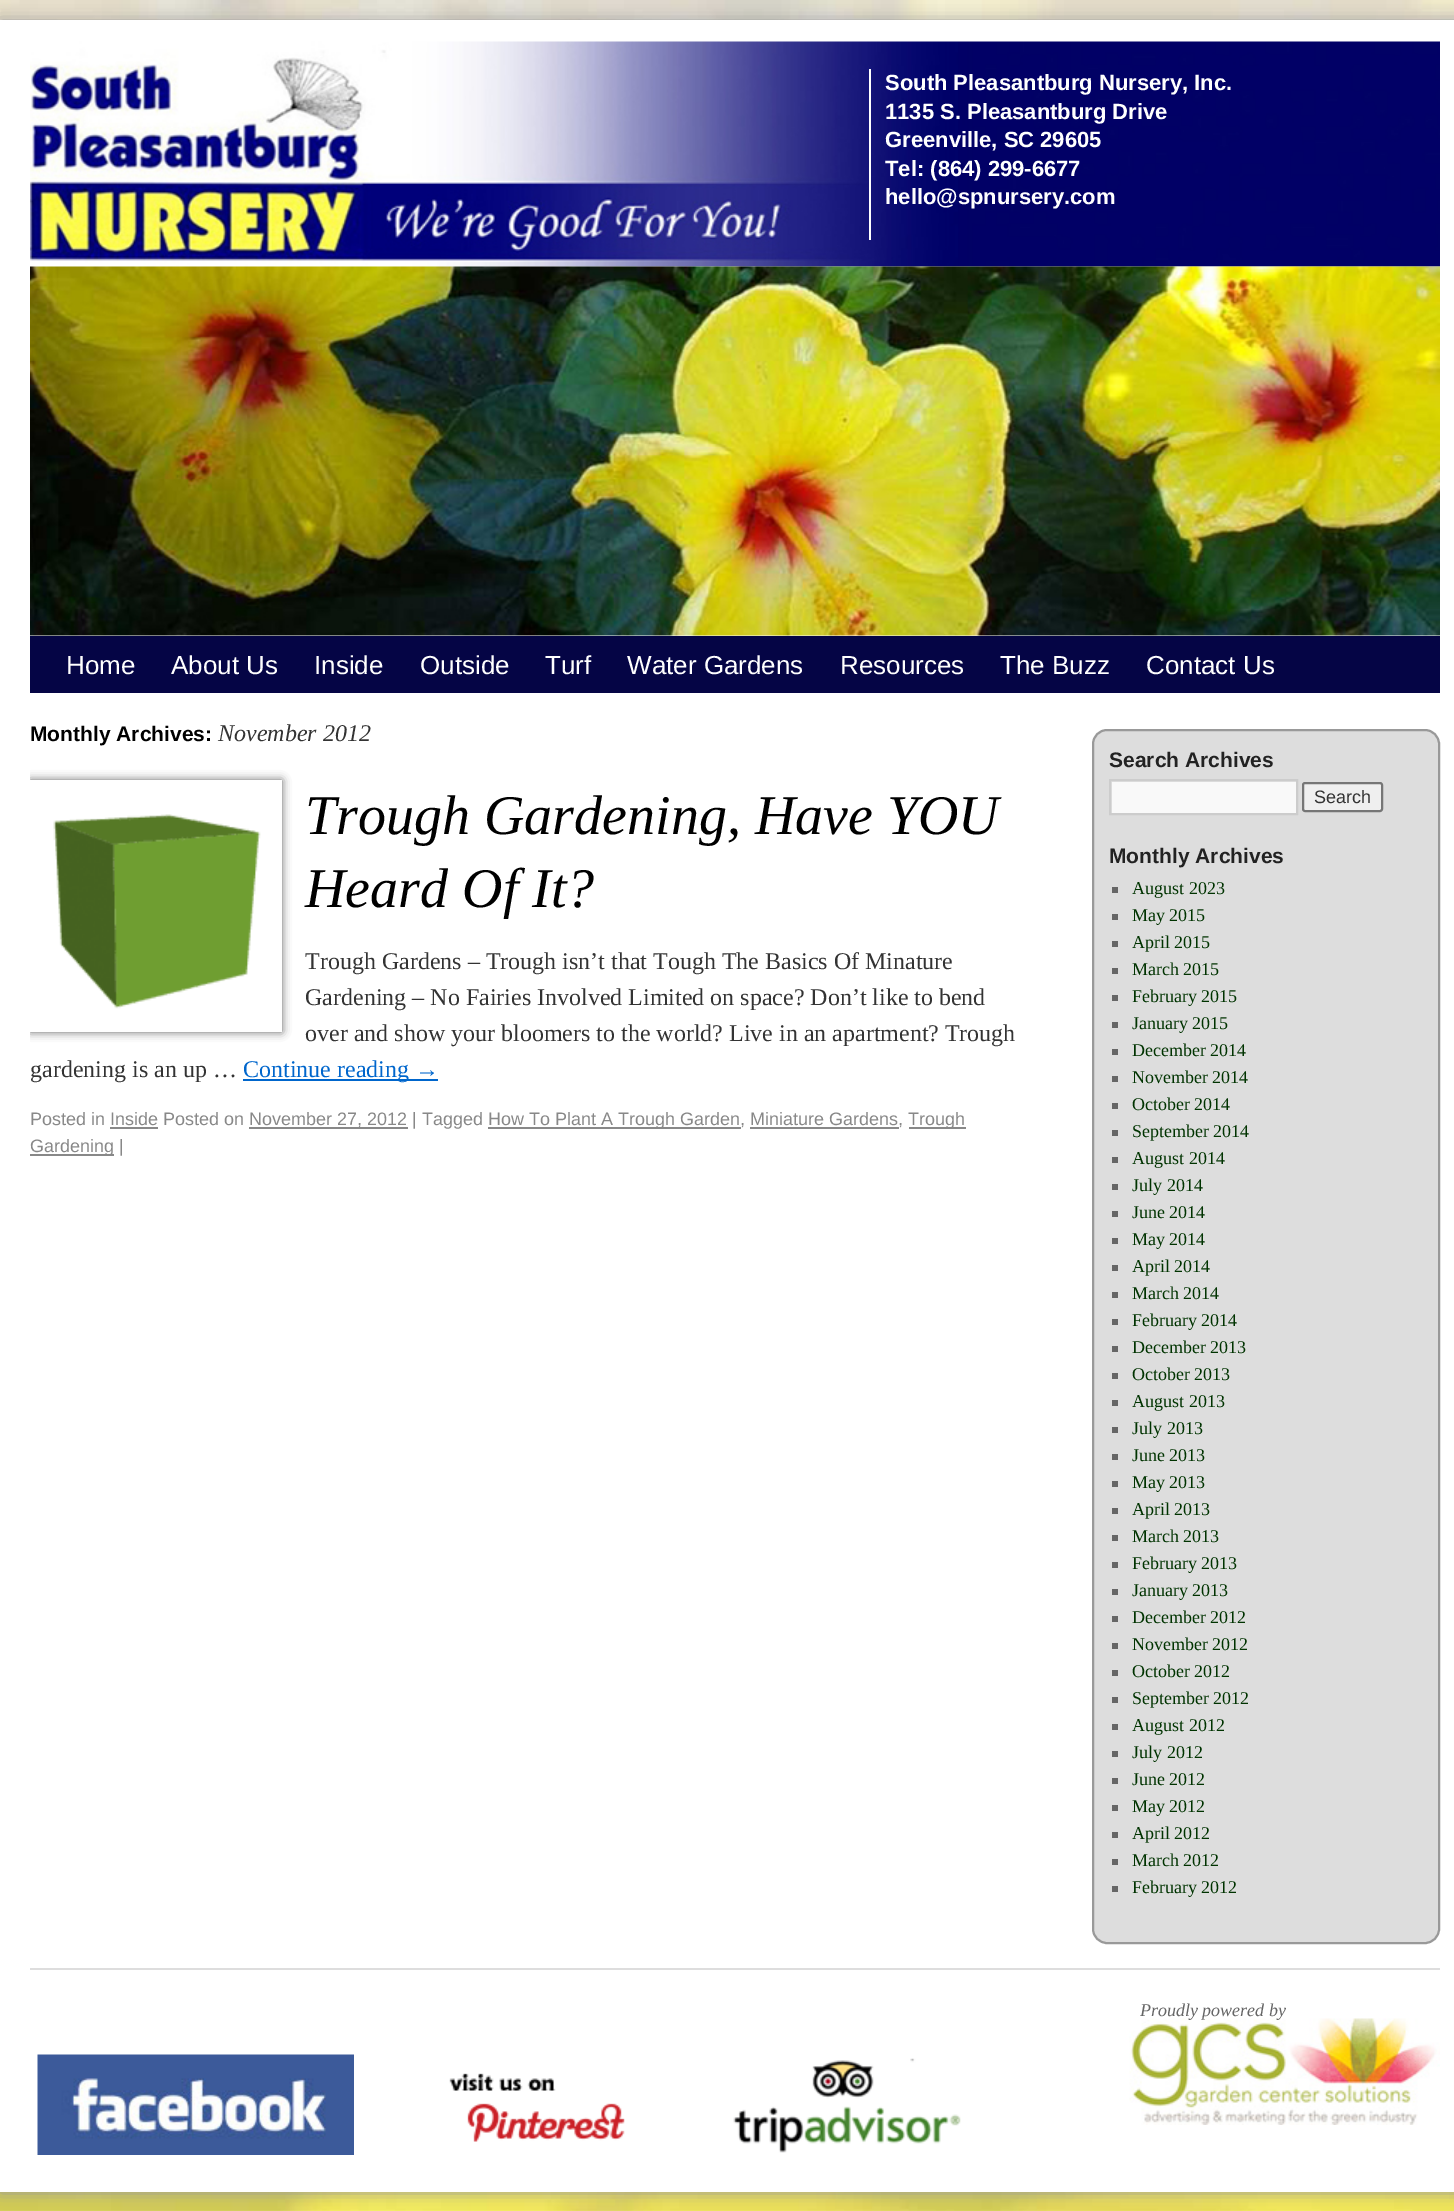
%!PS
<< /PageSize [1454 2211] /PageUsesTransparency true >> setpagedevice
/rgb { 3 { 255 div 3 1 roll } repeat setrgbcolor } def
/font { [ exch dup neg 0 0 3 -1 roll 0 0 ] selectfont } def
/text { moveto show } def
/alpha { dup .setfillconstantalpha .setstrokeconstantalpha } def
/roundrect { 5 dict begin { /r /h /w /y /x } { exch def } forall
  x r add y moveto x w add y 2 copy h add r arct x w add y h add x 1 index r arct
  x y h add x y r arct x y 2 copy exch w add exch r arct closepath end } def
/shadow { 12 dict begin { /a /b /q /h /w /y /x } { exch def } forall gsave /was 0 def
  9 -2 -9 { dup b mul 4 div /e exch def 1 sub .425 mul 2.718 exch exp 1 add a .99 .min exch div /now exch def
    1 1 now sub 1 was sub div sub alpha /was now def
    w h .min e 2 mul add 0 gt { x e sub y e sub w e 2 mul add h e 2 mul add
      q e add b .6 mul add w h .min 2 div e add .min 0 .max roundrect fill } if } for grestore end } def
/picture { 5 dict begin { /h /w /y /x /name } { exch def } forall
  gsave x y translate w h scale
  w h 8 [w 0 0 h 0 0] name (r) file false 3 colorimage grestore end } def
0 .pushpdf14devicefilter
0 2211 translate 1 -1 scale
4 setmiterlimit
255 255 255 rgb
0 0 1454 2211 rectfill
(img_01.rgb) 0 0 1454 2211 picture
153 153 153 rgb
0 21 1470 2172 0 7.5 1 shadow
255 255 255 rgb
0 20 1454 2172 rectfill
(img_02.rgb) 30 41 1410 226 picture
869 69 2 171 rectfill
(img_03.rgb) 30 266 1410 370 picture
5 5 69 rgb
30 636 1410 57 rectfill
gsave
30 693 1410 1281 rectclip
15 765 moveto 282 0 rlineto 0 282 rlineto -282 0 rlineto closepath 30 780 moveto 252 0 rlineto 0 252 rlineto -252 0 rlineto closepath eoclip newpath
102 102 102 rgb
30 780 252 252 0 4.5 1 shadow
grestore
(img_04.rgb) 53 814 208 195 picture
0 102 204 rgb
243 1079 195 2 rectfill
136 136 136 rgb
110 1127 48 2 rectfill
249 1127 159 2 rectfill
488 1127 253 2 rectfill
750 1127 149 2 rectfill
909 1127 57 2 rectfill
30 1154 84 2 rectfill
221 221 221 rgb
1093 730 346 1213 14 roundrect gsave fill grestore
153 153 153 rgb
2 setlinewidth
stroke
249 249 249 rgb
1112 782 184 31 rectfill
gsave
1110 780 186 33 rectclip
224 224 224 rgb
1108 731 moveto 317 0 rlineto 8 0 14 6 14 14 rcurveto 0 217 rlineto -345 0 rlineto 0 -217 rlineto 0 -8 6 -14 14 -14 rcurveto closepath 1112 782 moveto 0 32 rlineto 186 0 rlineto 0 -32 rlineto closepath eofill
grestore
204 204 204 rgb
1110 780 187 34 rectstroke
239 239 239 rgb
1303 783 79 28 2 roundrect gsave fill grestore
118 118 118 rgb
stroke
102 102 102 rgb
1112 887 6 6 rectfill
1112 914 6 6 rectfill
1112 941 6 6 rectfill
1112 968 6 6 rectfill
1112 995 6 6 rectfill
1112 1022 6 6 rectfill
1112 1049 6 6 rectfill
1112 1076 6 6 rectfill
1112 1103 6 6 rectfill
1112 1130 6 6 rectfill
1112 1157 6 6 rectfill
1112 1184 6 6 rectfill
1112 1211 6 6 rectfill
1112 1238 6 6 rectfill
1112 1265 6 6 rectfill
1112 1292 6 6 rectfill
1112 1319 6 6 rectfill
1112 1346 6 6 rectfill
1112 1373 6 6 rectfill
1112 1400 6 6 rectfill
1112 1427 6 6 rectfill
1112 1454 6 6 rectfill
1112 1481 6 6 rectfill
1112 1508 6 6 rectfill
1112 1535 6 6 rectfill
1112 1562 6 6 rectfill
1112 1589 6 6 rectfill
1112 1616 6 6 rectfill
1112 1643 6 6 rectfill
1112 1670 6 6 rectfill
1112 1697 6 6 rectfill
1112 1724 6 6 rectfill
1112 1751 6 6 rectfill
1112 1778 6 6 rectfill
1112 1805 6 6 rectfill
1112 1832 6 6 rectfill
1112 1859 6 6 rectfill
1112 1886 6 6 rectfill
221 221 221 rgb
30 1968 1410 2 rectfill
(img_05.rgb) 1129 2018 311 107 picture
(img_06.rgb) 37 2054 317 101 picture
(img_07.rgb) 449 2073 176 69 picture
(img_08.rgb) 733 2058 228 95 picture
/LiberationSans-Bold 22 font
255 255 255 rgb
(South Pleasantburg Nursery, Inc.) 885 90 text
(1135 S. Pleasantburg Drive) 885 119 text
(Greenville, SC 29605) 885 147 text
(Tel: \(864\) 299-6677) 885 176 text
(hello@spnursery.com) 885 204 text
/LiberationSans-Regular 26 font
(Home) 66 674 text
(About Us) 171 674 text
(Inside) 314 674 text
(Outside) 420 674 text
(Turf) 545 674 text
(Water Gardens) 627 674 text
(Resources) 840 674 text
(The Buzz) 1000 674 text
(Contact Us) 1146 674 text
/LiberationSans-Bold 21 font
0 0 0 rgb
(Monthly Archives:) 30 741 text
/LiberationSerif-Italic 24 font
51 51 51 rgb
(November 2012) 218 741 text
/LiberationSerif-Italic 56 font
0 0 0 rgb
(Trough Gardening, Have YOU) 305 834 text
(Heard Of It?) 305 907 text
/LiberationSerif-Regular 24 font
51 51 51 rgb
(Trough Gardens – Trough isn’t that Tough The Basics Of Minature) 305 969 text
(Gardening – No Fairies Involved Limited on space? Don’t like to bend) 305 1005 text
(over and show your bloomers to the world? Live in an apartment? Trough) 305 1041 text
(gardening is an up …) 30 1077 text
0 102 204 rgb
(Continue reading →) 243 1077 text
/LiberationSans-Regular 18 font
136 136 136 rgb
(Posted in Inside Posted on) 30 1125 text
(November 27, 2012 | Tagged) 249 1125 text
(How To Plant A Trough Garden, Miniature Gardens,) 488 1125 text
(Trough) 908 1125 text
(Gardening |) 30 1152 text
/LiberationSans-Bold 21 font
34 34 34 rgb
(Search Archives) 1109 767 text
/LiberationSans-Regular 18 font
51 51 51 rgb
(Search) 1314 803 text
/LiberationSans-Bold 21 font
34 34 34 rgb
(Monthly Archives) 1109 863 text
/LiberationSerif-Regular 18 font
0 51 0 rgb
(August 2023) 1132 894 text
(May 2015) 1132 921 text
(April 2015) 1132 948 text
(March 2015) 1132 975 text
(February 2015) 1132 1002 text
(January 2015) 1132 1029 text
(December 2014) 1132 1056 text
(November 2014) 1132 1083 text
(October 2014) 1132 1110 text
(September 2014) 1132 1137 text
(August 2014) 1132 1164 text
(July 2014) 1132 1191 text
(June 2014) 1132 1218 text
(May 2014) 1132 1245 text
(April 2014) 1132 1272 text
(March 2014) 1132 1299 text
(February 2014) 1132 1326 text
(December 2013) 1132 1353 text
(October 2013) 1132 1380 text
(August 2013) 1132 1407 text
(July 2013) 1132 1434 text
(June 2013) 1132 1461 text
(May 2013) 1132 1488 text
(April 2013) 1132 1515 text
(March 2013) 1132 1542 text
(February 2013) 1132 1569 text
(January 2013) 1132 1596 text
(December 2012) 1132 1623 text
(November 2012) 1132 1650 text
(October 2012) 1132 1677 text
(September 2012) 1132 1704 text
(August 2012) 1132 1731 text
(July 2012) 1132 1758 text
(June 2012) 1132 1785 text
(May 2012) 1132 1812 text
(April 2012) 1132 1839 text
(March 2012) 1132 1866 text
(February 2012) 1132 1893 text
/LiberationSerif-Italic 18 font
102 102 102 rgb
(Proudly powered by) 1140 2016 text
.poppdf14devicefilter showpage
